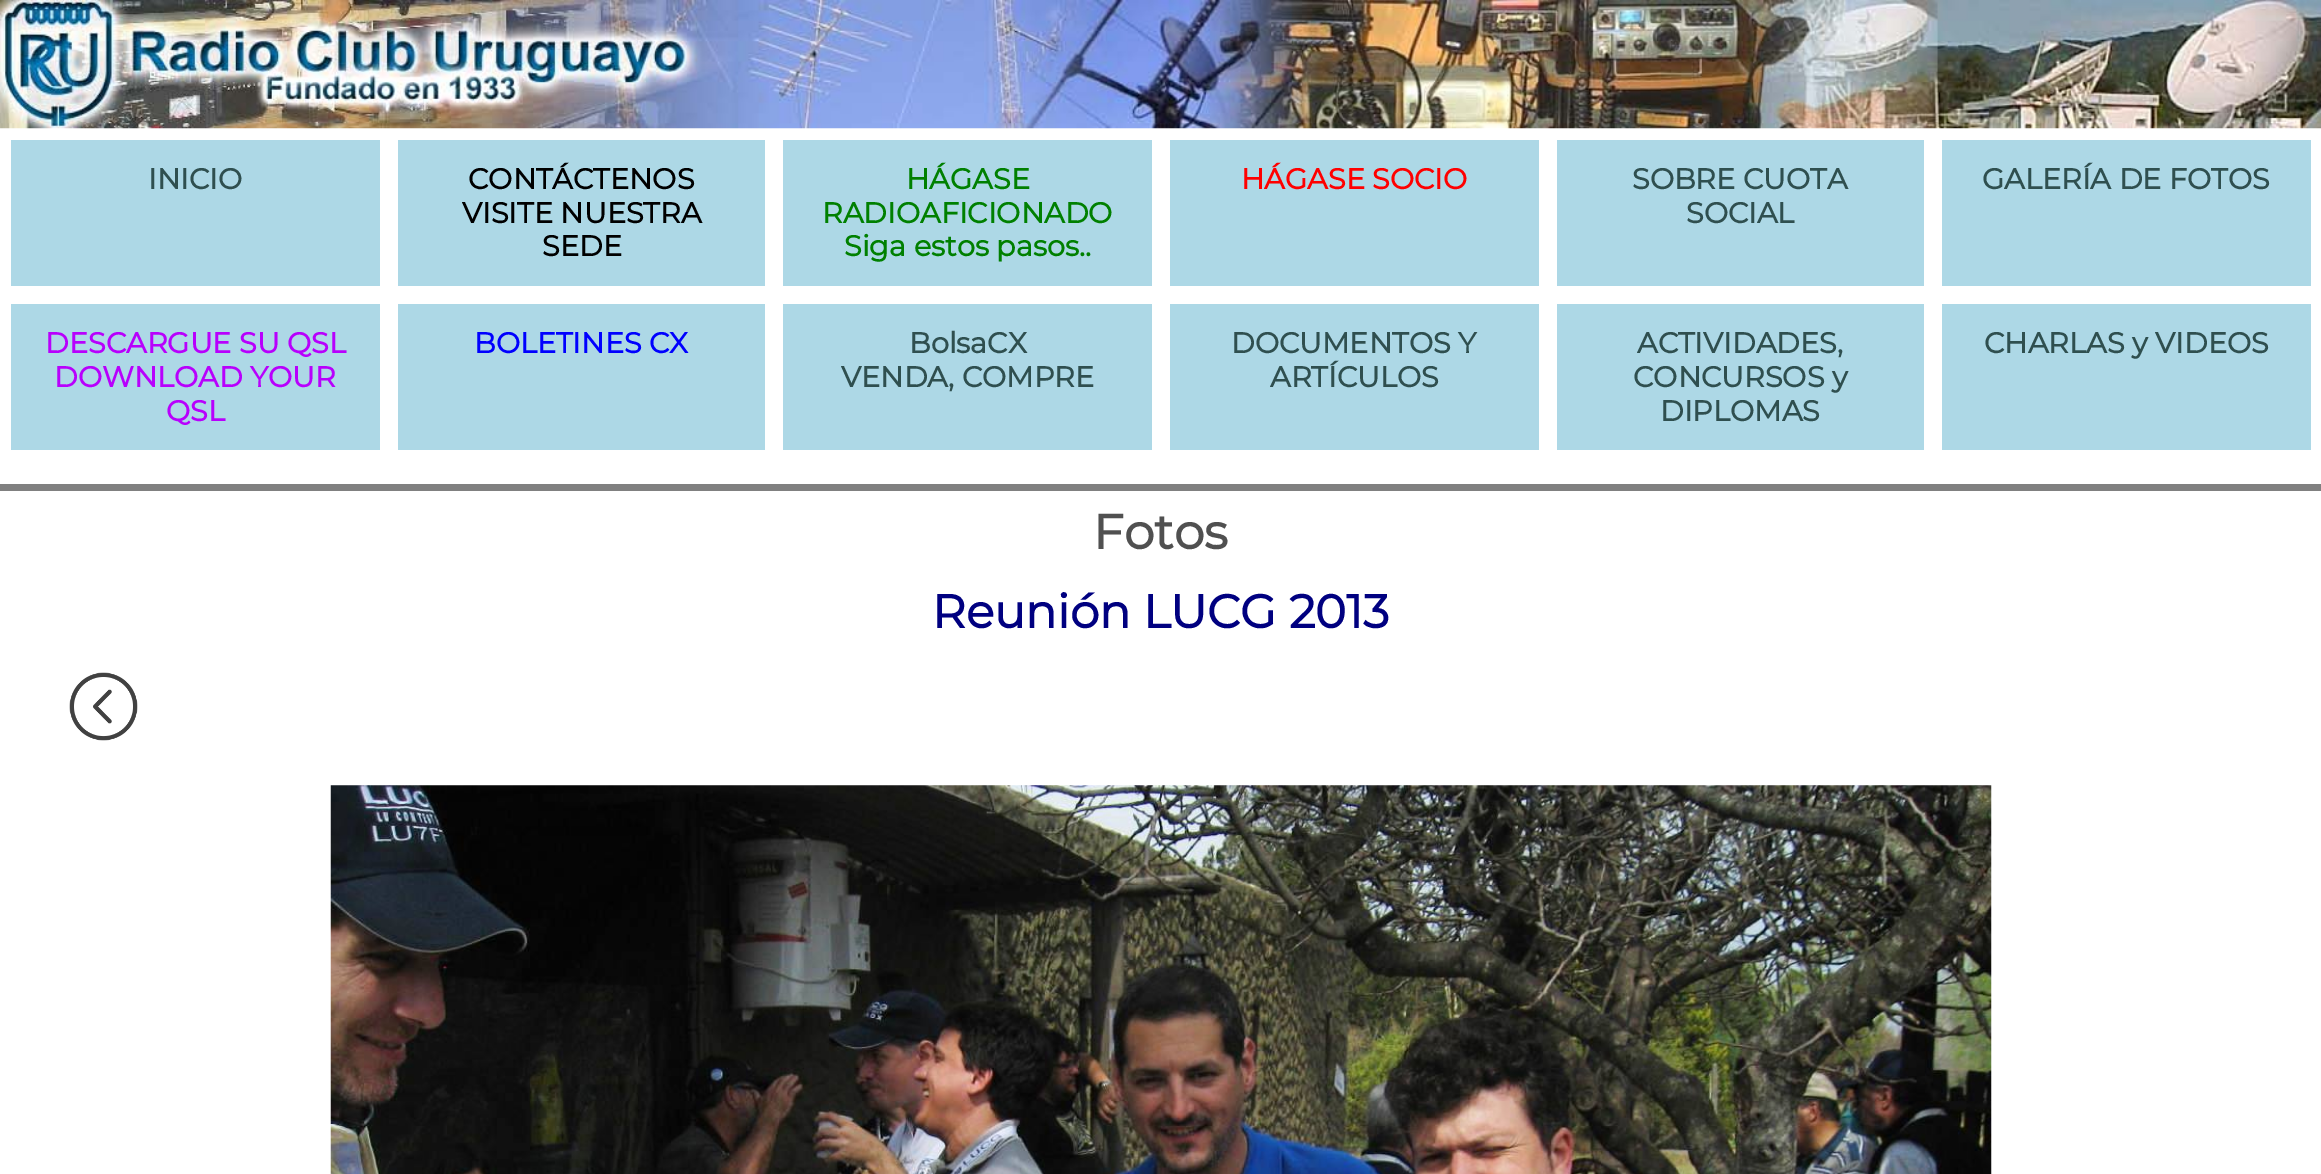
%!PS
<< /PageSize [2321 1174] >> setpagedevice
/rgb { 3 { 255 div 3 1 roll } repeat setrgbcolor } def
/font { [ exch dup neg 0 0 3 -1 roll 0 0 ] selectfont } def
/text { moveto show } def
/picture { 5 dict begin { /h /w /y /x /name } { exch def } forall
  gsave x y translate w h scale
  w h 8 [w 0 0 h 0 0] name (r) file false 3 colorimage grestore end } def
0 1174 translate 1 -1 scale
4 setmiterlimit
255 255 255 rgb
0 0 2321 1174 rectfill
(img_01.rgb) 0 0 2321 129 picture
173 216 230 rgb
11 140 369 146 rectfill
398 140 367 146 rectfill
783 140 369 146 rectfill
1170 140 369 146 rectfill
1557 140 367 146 rectfill
1942 140 369 146 rectfill
11 304 369 146 rectfill
398 304 367 146 rectfill
783 304 369 146 rectfill
1170 304 369 146 rectfill
1557 304 367 146 rectfill
1942 304 369 146 rectfill
128 128 128 rgb
0 484 2321 7 rectfill
(img_02.rgb) 69 672 69 69 picture
(img_03.rgb) 330 785 1662 389 picture
/Montserrat-Bold 28.75 font
47 79 79 rgb
(INICIO) 148 189 text
0 0 0 rgb
(CONTÁCTENOS) 468 189 text
(VISITE NUESTRA) 462 223 text
(SEDE) 542 256 text
0 128 0 rgb
(HÁGASE) 906 189 text
(RADIOAFICIONADO) 822 223 text
(Siga estos pasos..) 844 256 text
255 0 0 rgb
(HÁGASE SOCIO) 1241 189 text
47 79 79 rgb
(SOBRE CUOTA) 1632 189 text
(SOCIAL) 1686 223 text
(GALERÍA DE FOTOS) 1982 189 text
184 0 253 rgb
(DESCARGUE SU QSL) 45 353 text
(DOWNLOAD YOUR) 54 387 text
(QSL) 166 421 text
0 0 255 rgb
(BOLETINES CX) 474 353 text
47 79 79 rgb
(BolsaCX) 909 353 text
(VENDA, COMPRE) 841 387 text
(DOCUMENTOS Y) 1231 353 text
(ARTÍCULOS) 1270 387 text
(ACTIVIDADES,) 1637 353 text
(CONCURSOS y) 1633 387 text
(DIPLOMAS) 1660 421 text
(CHARLAS y VIDEOS) 1984 353 text
/Montserrat-Bold 48.5 font
80 80 80 rgb
(Fotos) 1093 549 text
/Montserrat-Bold 46.75 font
0 0 128 rgb
(Reunión LUCG 2013) 932 628 text
showpage
